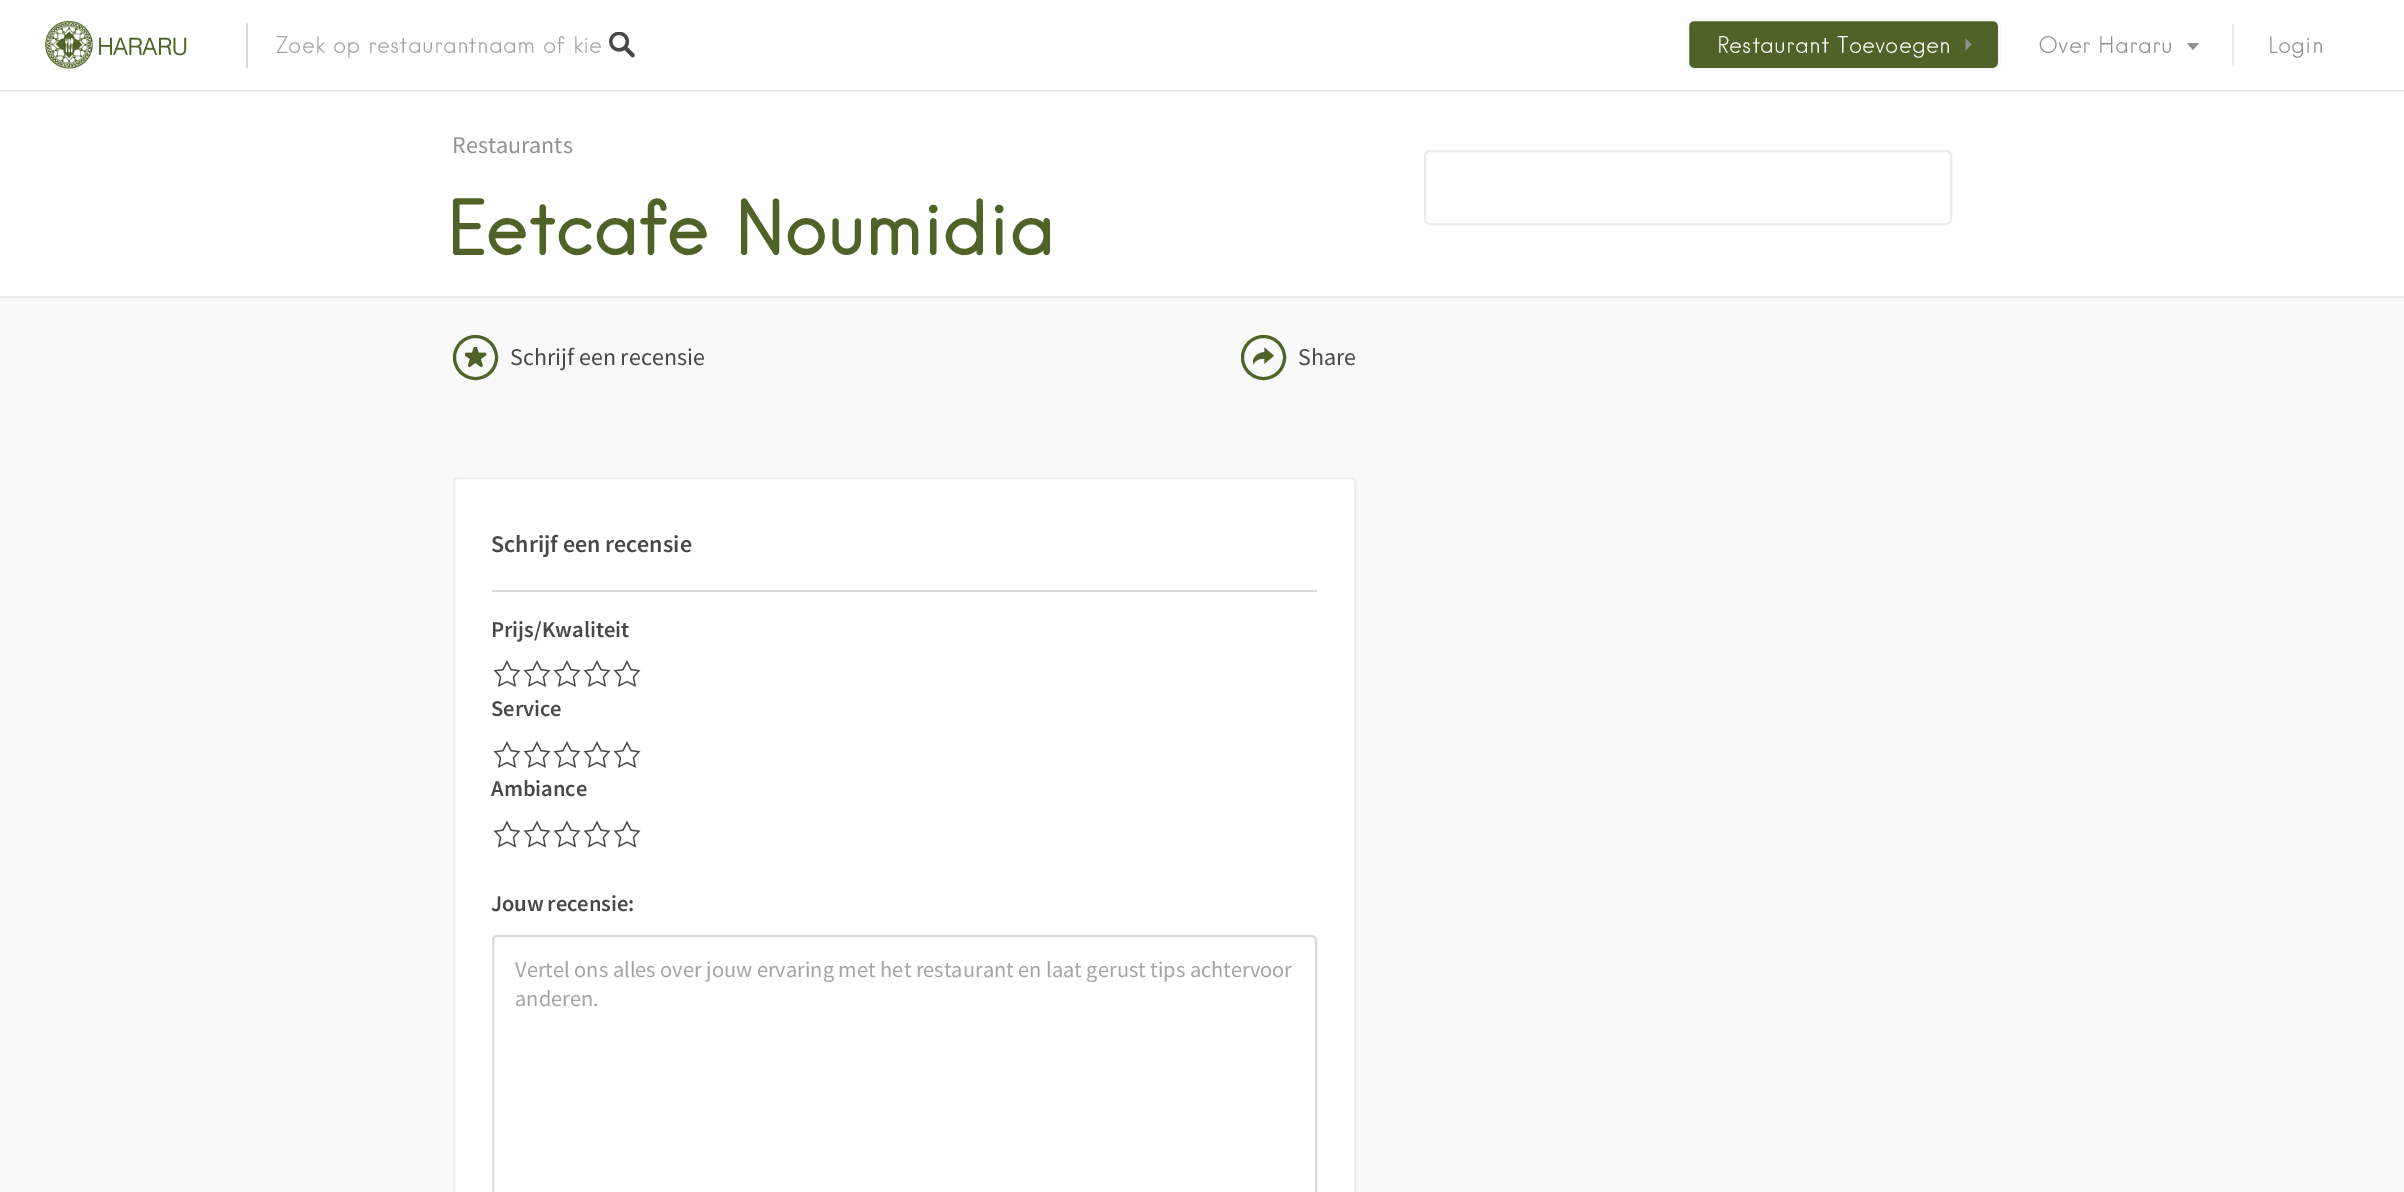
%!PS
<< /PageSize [2404 1192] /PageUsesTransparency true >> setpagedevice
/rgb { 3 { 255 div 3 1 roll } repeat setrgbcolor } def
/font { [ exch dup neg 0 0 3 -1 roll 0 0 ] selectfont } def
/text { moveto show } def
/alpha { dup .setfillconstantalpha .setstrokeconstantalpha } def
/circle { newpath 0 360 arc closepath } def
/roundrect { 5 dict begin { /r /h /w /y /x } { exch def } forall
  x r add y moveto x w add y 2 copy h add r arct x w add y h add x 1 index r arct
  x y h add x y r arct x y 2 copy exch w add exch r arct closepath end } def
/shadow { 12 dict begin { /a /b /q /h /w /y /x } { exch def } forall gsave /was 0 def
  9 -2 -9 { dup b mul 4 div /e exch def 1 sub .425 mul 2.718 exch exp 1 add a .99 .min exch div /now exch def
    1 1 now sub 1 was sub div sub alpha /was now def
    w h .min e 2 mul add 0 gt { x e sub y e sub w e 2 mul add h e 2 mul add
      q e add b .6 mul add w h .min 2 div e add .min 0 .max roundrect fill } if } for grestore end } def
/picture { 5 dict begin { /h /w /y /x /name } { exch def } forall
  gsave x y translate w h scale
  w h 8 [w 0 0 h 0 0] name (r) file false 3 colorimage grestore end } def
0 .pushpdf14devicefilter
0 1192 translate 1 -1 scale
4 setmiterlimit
249 249 249 rgb
0 0 2404 1192 rectfill
232 232 232 rgb
0 297 2404 1 rectfill
255 255 255 rgb
0 90 2404 206 rectfill
0 0 0 rgb
0 0 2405 90 0 1.5 0.25 shadow
255 255 255 rgb
0 0 2404 90 rectfill
(img_01.rgb) 45 21 142 48 picture
218 218 218 rgb
246 23 2 45 rectfill
(img_02.rgb) 609 32 26 26 picture
79 98 40 rgb
1687.5 19.5 312 50 6.5 roundrect gsave fill grestore
249 249 249 rgb
3 setlinewidth
stroke
145 145 145 rgb
1965.5 50.5 moveto 0 -12 rlineto 6 6 rlineto closepath fill
2187 43 moveto 12 0 rlineto -6 7 rlineto closepath fill
236 236 236 rgb
2232 24 2 42 rectfill
237 237 237 rgb
0 296 2404 1 rectfill
79 98 40 rgb
475.5 357.5 21 circle stroke
(img_03.rgb) 465 347 22 20 picture
1263.5 357.5 21 circle stroke
(img_04.rgb) 1253 347 21 18 picture
255 255 255 rgb
453 477 903 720 5 roundrect fill
0.07 alpha
0 0 0 rgb
2 setlinewidth
454 478 901 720 4 roundrect stroke
1 alpha
218 218 218 rgb
492 590 825 2 rectfill
(img_05.rgb) 493 660 28 27 picture
(img_05.rgb) 523 660 28 27 picture
(img_05.rgb) 553 660 28 27 picture
(img_05.rgb) 583 660 28 27 picture
(img_05.rgb) 613 660 28 27 picture
(img_05.rgb) 493 741 28 27 picture
(img_05.rgb) 523 741 28 27 picture
(img_05.rgb) 553 741 28 27 picture
(img_05.rgb) 583 741 28 27 picture
(img_05.rgb) 613 741 28 27 picture
(img_06.rgb) 493 820 28 28 picture
(img_06.rgb) 523 820 28 28 picture
(img_06.rgb) 553 820 28 28 picture
(img_06.rgb) 583 820 28 28 picture
(img_06.rgb) 613 820 28 28 picture
493 936 823 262 4 roundrect stroke
236 236 236 rgb
1425 151 526 73 5 roundrect stroke
/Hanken-Light 22.4 font
164 164 164 rgb
(Zoek op restaurantnaam of kie) 276 53 text
255 255 255 rgb
(Restaurant Toevoegen) 1717 53 text
145 145 145 rgb
(Over Hararu) 2038 53 text
(Login) 2268 53 text
/SourceSansPro-Regular 24 font
(Restaurants) 452 153 text
/Hanken-Regular 72 font
79 98 40 rgb
(Eetcafe Noumidia) 447 254 text
/SourceSansPro-Regular 24 font
72 72 72 rgb
(Schrijf een recensie) 510 365 text
(Share) 1298 365 text
/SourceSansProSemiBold-SemiBold 24 font
(Schrijf een recensie) 491 552 text
/SourceSansProSemiBold-SemiBold 22.5 font
(Prijs/Kwaliteit) 491 637 text
(Service) 491 716 text
(Ambiance) 491 796 text
491 911 moveto -1 0 32 (Jouw recensie:) widthshow
/SourceSansPro-Regular 22.4 font
164 164 164 rgb
(Vertel ons alles over jouw ervaring met het restaurant en laat gerust tips achtervoor) 515 977 text
(anderen.) 515 1006 text
.poppdf14devicefilter showpage
